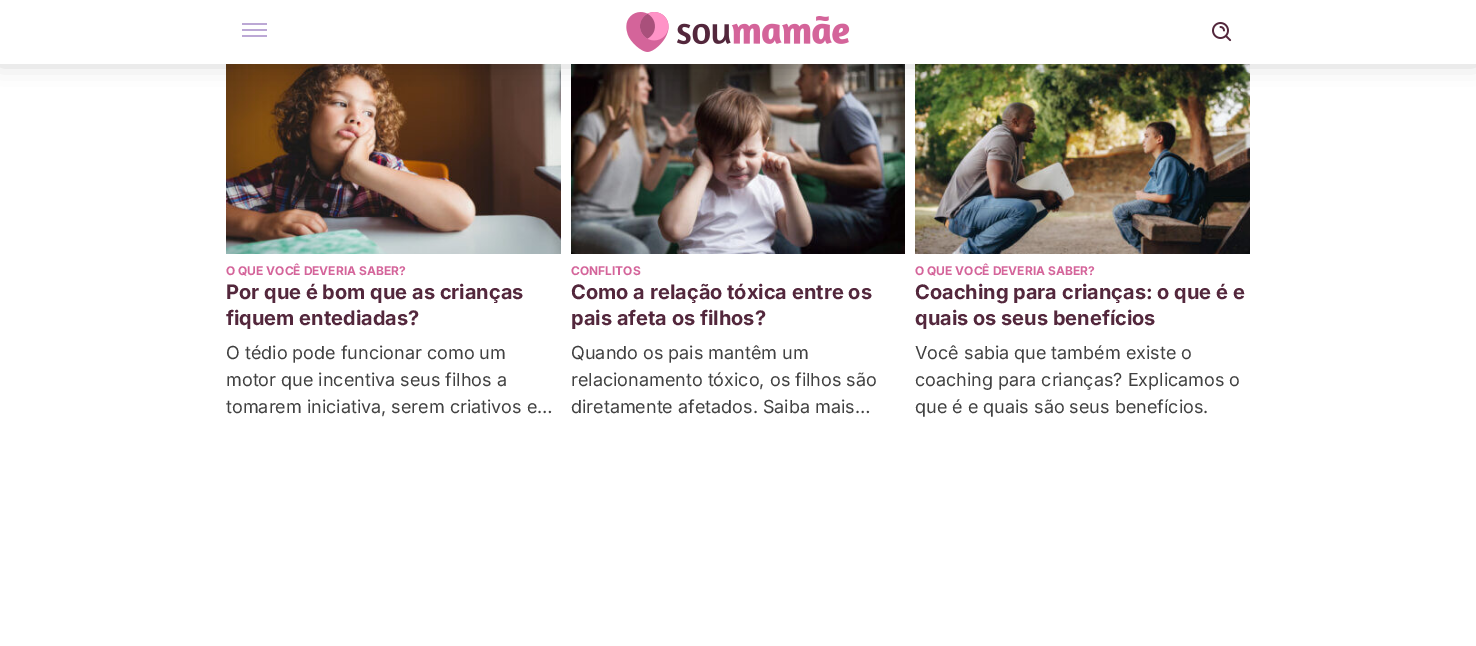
%!PS
<< /PageSize [1476 646] /PageUsesTransparency true >> setpagedevice
/rgb { 3 { 255 div 3 1 roll } repeat setrgbcolor } def
/font { [ exch dup neg 0 0 3 -1 roll 0 0 ] selectfont } def
/text { moveto show } def
/alpha { dup .setfillconstantalpha .setstrokeconstantalpha } def
/roundrect { 5 dict begin { /r /h /w /y /x } { exch def } forall
  x r add y moveto x w add y 2 copy h add r arct x w add y h add x 1 index r arct
  x y h add x y r arct x y 2 copy exch w add exch r arct closepath end } def
/shadow { 12 dict begin { /a /b /q /h /w /y /x } { exch def } forall gsave /was 0 def
  9 -2 -9 { dup b mul 4 div /e exch def 1 sub .425 mul 2.718 exch exp 1 add a .99 .min exch div /now exch def
    1 1 now sub 1 was sub div sub alpha /was now def
    w h .min e 2 mul add 0 gt { x e sub y e sub w e 2 mul add h e 2 mul add
      q e add b .6 mul add w h .min 2 div e add .min 0 .max roundrect fill } if } for grestore end } def
/picture { 5 dict begin { /h /w /y /x /name } { exch def } forall
  gsave x y translate w h scale
  w h 8 [w 0 0 h 0 0] name (r) file false 3 colorimage grestore end } def
0 .pushpdf14devicefilter
0 646 translate 1 -1 scale
4 setmiterlimit
255 255 255 rgb
0 0 1476 646 rectfill
(img_03.rgb) 226 64 335 190 picture
(img_04.rgb) 571 64 334 190 picture
(img_05.rgb) 915 64 335 190 picture
0 0 0 rgb
0 -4 1476 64 0 12 0.25 shadow
255 255 255 rgb
0 0 1476 64 rectfill
188 168 213 rgb
242 23 25 2 rectfill
242 29 25 2 rectfill
242 35 25 2 rectfill
(img_01.rgb) 626 12 224 40 picture
(img_02.rgb) 1212 22 20 20 picture
/Inter-Bold 12 font
212 100 154 rgb
(O QUE VOCÊ DEVERIA SABER?) 226 275 text
/Inter-Bold 20 font
83 39 60 rgb
(Por que é bom que as crianças) 226 299 text
(fiquem entediadas?) 226 325 text
/Inter-Regular 18 font
65 65 65 rgb
(O tédio pode funcionar como um) 226 359 text
(motor que incentiva seus filhos a) 226 386 text
(tomarem iniciativa, serem criativos e…) 226 413 text
/Inter-Bold 12 font
212 100 154 rgb
(CONFLITOS) 571 275 text
/Inter-Bold 20 font
83 39 60 rgb
(Como a relação tóxica entre os) 571 299 text
(pais afeta os filhos?) 571 325 text
/Inter-Regular 18 font
65 65 65 rgb
(Quando os pais mantêm um) 571 359 text
(relacionamento tóxico, os filhos são) 571 386 text
(diretamente afetados. Saiba mais…) 571 413 text
/Inter-Bold 12 font
212 100 154 rgb
(O QUE VOCÊ DEVERIA SABER?) 915 275 text
/Inter-Bold 20 font
83 39 60 rgb
(Coaching para crianças: o que é e) 915 299 text
(quais os seus benefícios) 915 325 text
/Inter-Regular 18 font
65 65 65 rgb
(Você sabia que também existe o) 915 359 text
(coaching para crianças? Explicamos o) 915 386 text
(que é e quais são seus benefícios.) 915 413 text
.poppdf14devicefilter showpage
